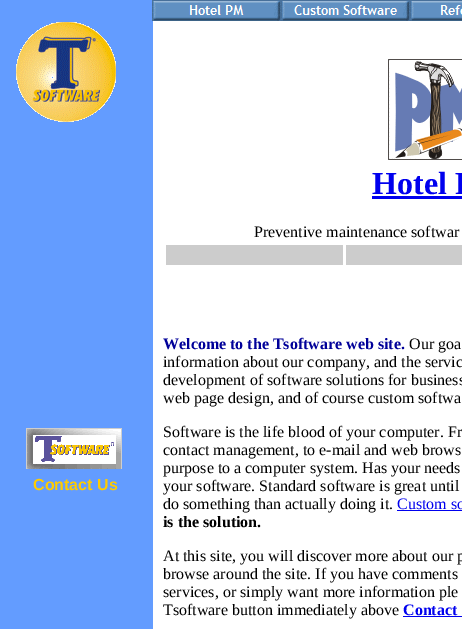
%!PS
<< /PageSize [462 629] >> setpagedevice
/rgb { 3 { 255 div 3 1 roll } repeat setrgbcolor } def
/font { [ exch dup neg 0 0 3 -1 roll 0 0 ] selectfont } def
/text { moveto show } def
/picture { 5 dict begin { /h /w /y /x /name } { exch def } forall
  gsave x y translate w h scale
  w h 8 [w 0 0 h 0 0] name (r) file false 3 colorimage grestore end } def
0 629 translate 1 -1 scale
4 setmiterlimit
255 255 255 rgb
0 0 462 629 rectfill
99 156 255 rgb
0 0 153 629 rectfill
(img_01.rgb) 16 22 100 100 picture
(img_02.rgb) 26 428 96 41 picture
(img_03.rgb) 152 0 129 21 picture
(img_04.rgb) 281 0 129 21 picture
(img_05.rgb) 410 0 52 21 picture
(img_06.rgb) 388 59 74 101 picture
0 0 238 rgb
372 196 90 3 rectfill
204 204 204 rgb
166 245 177 20 rectfill
346 245 116 20 rectfill
0 0 238 rgb
397 510 65 1 rectfill
403 616 59 1 rectfill
/LiberationSans-Bold 16 font
255 204 0 rgb
(Contact Us) 33 490 text
/LiberationSerif-Bold 32 font
0 0 238 rgb
(Hotel P) 372 194 text
/LiberationSerif-Regular 16 font
0 0 0 rgb
(Preventive maintenance softwar) 254 237 text
/LiberationSerif-Bold 16 font
0 0 153 rgb
(Welcome to the Tsoftware web site.) 163 349 text
/LiberationSerif-Regular 16 font
0 0 0 rgb
(Our goa) 409 349 text
(information about our company, and the servic) 163 367 text
(development of software solutions for business) 163 385 text
(web page design, and of course custom softwa) 163 403 text
(Software is the life blood of your computer. Fr) 163 437 text
(contact management, to e-mail and web brows) 163 455 text
(purpose to a computer system. Has your needs) 163 473 text
(your software. Standard software is great until) 163 491 text
(do something than actually doing it.) 163 509 text
0 0 238 rgb
(Custom so) 397 509 text
/LiberationSerif-Bold 16 font
0 0 0 rgb
(is the solution.) 163 527 text
/LiberationSerif-Regular 16 font
(At this site, you will discover more about our p) 163 561 text
(browse around the site. If you have comments) 163 579 text
(services, or simply want more information ple) 163 597 text
(Tsoftware button immediately above) 163 615 text
/LiberationSerif-Bold 16 font
0 0 238 rgb
(Contact) 403 615 text
showpage
